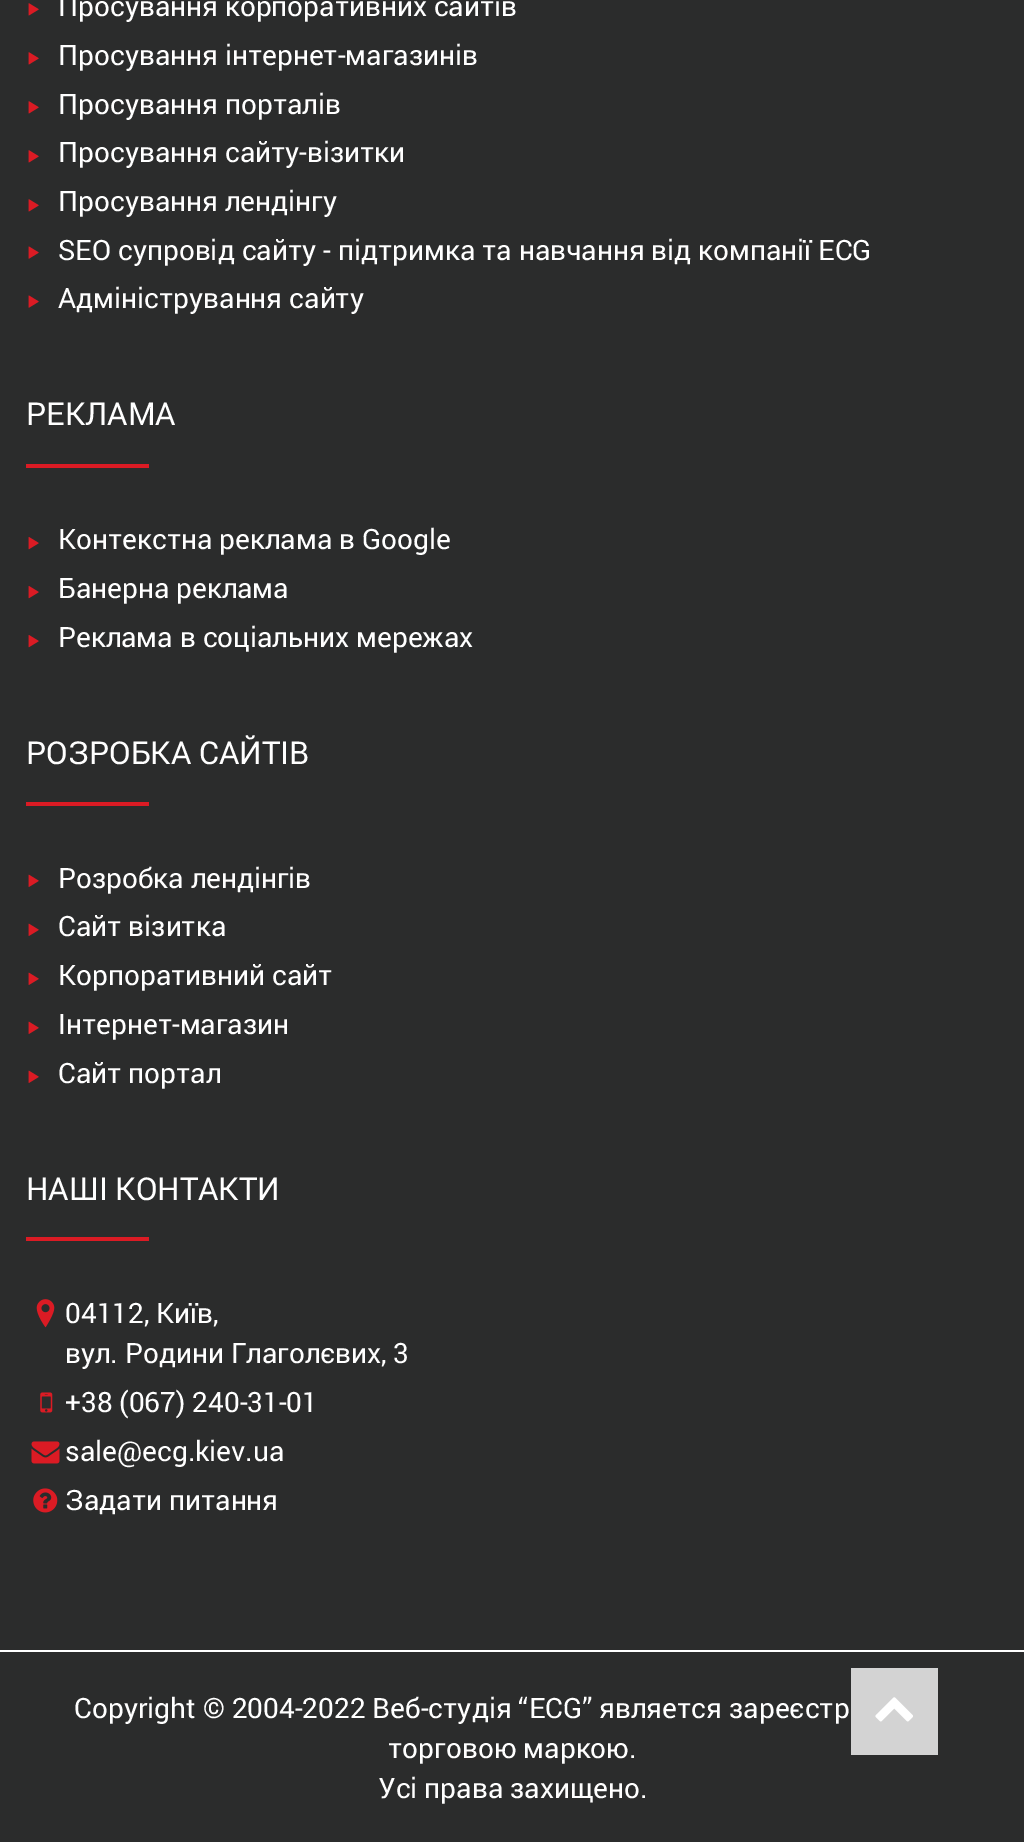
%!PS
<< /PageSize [1024 1842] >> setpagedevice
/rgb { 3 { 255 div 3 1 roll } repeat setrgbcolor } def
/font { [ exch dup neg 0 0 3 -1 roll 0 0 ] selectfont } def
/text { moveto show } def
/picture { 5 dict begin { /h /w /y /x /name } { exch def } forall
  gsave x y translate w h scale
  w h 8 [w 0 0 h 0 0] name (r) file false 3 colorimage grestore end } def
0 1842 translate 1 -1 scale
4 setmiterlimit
43 44 44 rgb
0 0 1024 1842 rectfill
(img_01.rgb) 28 3 11 13 picture
(img_01.rgb) 28 52 11 13 picture
(img_01.rgb) 28 101 11 13 picture
(img_01.rgb) 28 150 11 13 picture
(img_01.rgb) 28 199 11 13 picture
(img_02.rgb) 28 246 11 13 picture
(img_02.rgb) 28 295 11 13 picture
219 27 36 rgb
26 464 123 4 rectfill
(img_03.rgb) 28 537 11 13 picture
(img_03.rgb) 28 586 11 13 picture
(img_03.rgb) 28 635 11 13 picture
26 802 123 4 rectfill
(img_04.rgb) 28 874 11 13 picture
(img_04.rgb) 28 923 11 13 picture
(img_04.rgb) 28 972 11 13 picture
(img_04.rgb) 28 1021 11 13 picture
(img_04.rgb) 28 1070 11 13 picture
26 1237 123 4 rectfill
(img_05.rgb) 36 1299 19 29 picture
(img_06.rgb) 40 1392 13 21 picture
(img_07.rgb) 31 1441 29 23 picture
(img_08.rgb) 33 1488 25 25 picture
255 255 255 rgb
0 1650 1024 2 rectfill
211 211 211 rgb
851 1668 87 87 rectfill
(img_09.rgb) 875 1697 38 25 picture
/Roboto-Regular 28 font
255 255 255 rgb
(Просування корпоративних сайтів) 58 16 text
(Просування інтернет-магазинів) 58 65 text
(Просування порталів) 58 114 text
(Просування сайту-візитки) 58 162 text
(Просування лендінгу) 58 211 text
(SEO супровід сайту - підтримка та навчання від компанії ECG) 58 260 text
(Адміністрування сайту) 58 308 text
/Roboto-Regular 31.5 font
(РЕКЛАМА) 26 425 text
/Roboto-Regular 28 font
(Контекстна реклама в Google) 58 549 text
(Банерна реклама) 58 598 text
(Реклама в соціальних мережах) 58 647 text
/Roboto-Regular 31.5 font
(РОЗРОБКА САЙТІВ) 26 764 text
/Roboto-Regular 28 font
(Розробка лендінгів) 58 888 text
(Сайт візитка) 58 936 text
(Корпоративний сайт) 58 985 text
(Інтернет-магазин) 58 1034 text
(Сайт портал) 58 1083 text
/Roboto-Regular 31.5 font
(НАШІ КОНТАКТИ) 26 1200 text
/Roboto-Regular 28 font
(04112, Київ,) 65 1323 text
(вул. Родини Глаголєвих, 3) 65 1363 text
(+38 \(067\) 240-31-01) 65 1412 text
(sale@ecg.kiev.ua) 65 1461 text
(Задати питання) 65 1510 text
(Copyright © 2004-2022 Веб-студія “ECG” является зареєстр) 74 1718 text
(торговою маркою.) 388 1758 text
(Усі права захищено.) 378 1798 text
showpage
